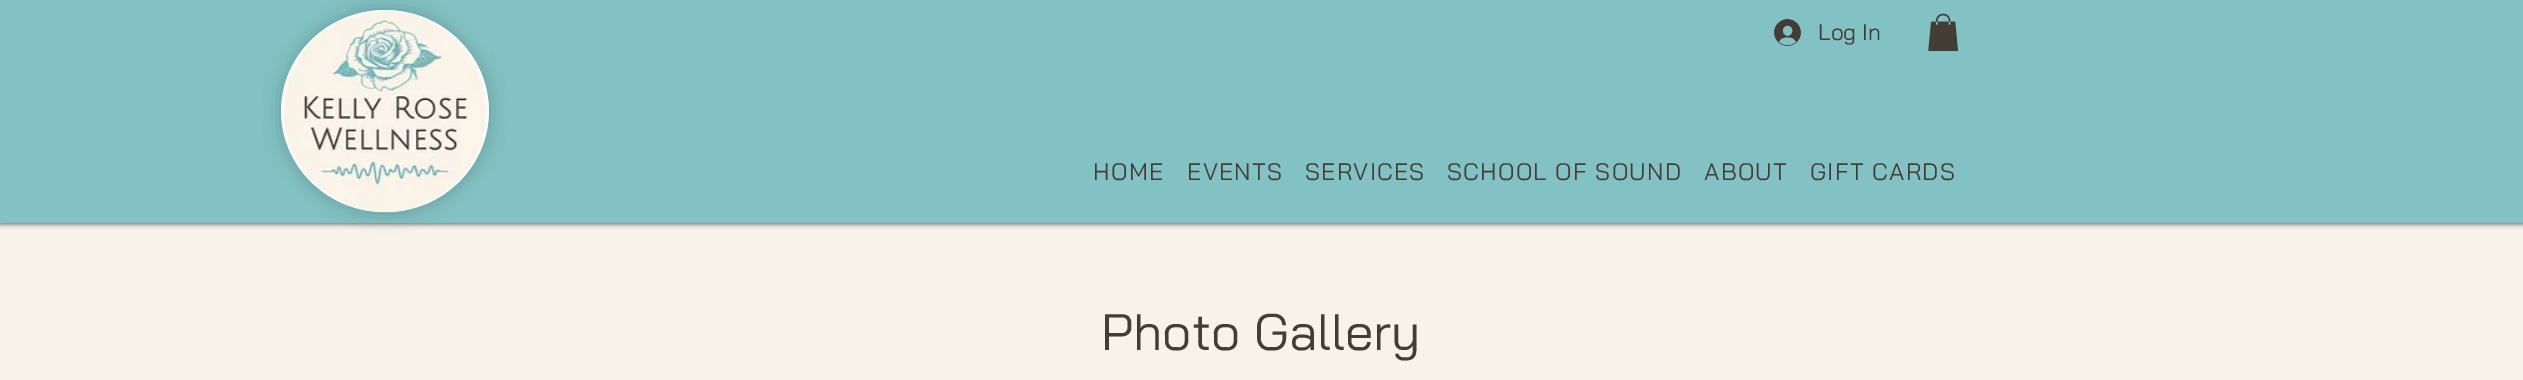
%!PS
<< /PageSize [2523 380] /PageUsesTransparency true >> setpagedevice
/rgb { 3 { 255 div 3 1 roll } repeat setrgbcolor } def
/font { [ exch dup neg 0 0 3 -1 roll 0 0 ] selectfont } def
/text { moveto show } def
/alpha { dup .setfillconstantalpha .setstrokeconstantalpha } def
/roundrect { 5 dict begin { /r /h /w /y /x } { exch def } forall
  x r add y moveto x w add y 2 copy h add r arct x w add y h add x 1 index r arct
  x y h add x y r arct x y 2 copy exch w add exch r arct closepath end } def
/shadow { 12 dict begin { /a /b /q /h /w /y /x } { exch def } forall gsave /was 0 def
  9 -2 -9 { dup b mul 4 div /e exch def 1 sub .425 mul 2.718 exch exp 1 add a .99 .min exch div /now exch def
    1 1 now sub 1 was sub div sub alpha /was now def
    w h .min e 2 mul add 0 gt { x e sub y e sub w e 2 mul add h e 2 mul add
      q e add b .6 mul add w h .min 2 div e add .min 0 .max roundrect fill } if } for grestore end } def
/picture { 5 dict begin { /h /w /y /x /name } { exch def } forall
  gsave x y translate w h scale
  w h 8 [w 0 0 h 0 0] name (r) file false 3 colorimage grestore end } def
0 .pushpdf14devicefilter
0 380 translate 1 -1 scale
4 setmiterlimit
248 243 234 rgb
0 0 2523 380 rectfill
0 0 0 rgb
0 1 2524 223 0 2.5 0.6 shadow
130 194 196 rgb
0 0 2523 223 rectfill
0 0 0 rgb
281 10 208 203 101.5 9 0.2 shadow
255 255 255 rgb
385 10 moveto 57.5 0 104 45 104 101 rcurveto 0 56 -46.5 101 -104 101 rcurveto -57.5 0 -104 -45 -104 -101 rcurveto 0 -56 46.5 -101 104 -101 rcurveto closepath fill
(img_01.rgb) 281 10 208 203 picture
(img_02.rgb) 1774 19 27 27 picture
(img_03.rgb) 1928 13 30 39 picture
/BaiJamjuree-Regular 22.5 font
67 61 54 rgb
(Log In) 1818 40 text
/BaiJamjuree-Regular 23.75 font
1093 180 moveto 1.25 0 (HOME) ashow
1187 180 moveto 1.25 0 (EVENTS) ashow
1305 180 moveto 1.25 0 (SERVICES) ashow
1447 180 moveto 1.25 0 (SCHOOL OF SOUND) ashow
1704 180 moveto 1.25 0 (ABOUT) ashow
1810 180 moveto 1.25 0 (GIFT CARDS) ashow
/BaiJamjuree-Regular 51.25 font
(Photo Gallery) 1101 350 text
.poppdf14devicefilter showpage
